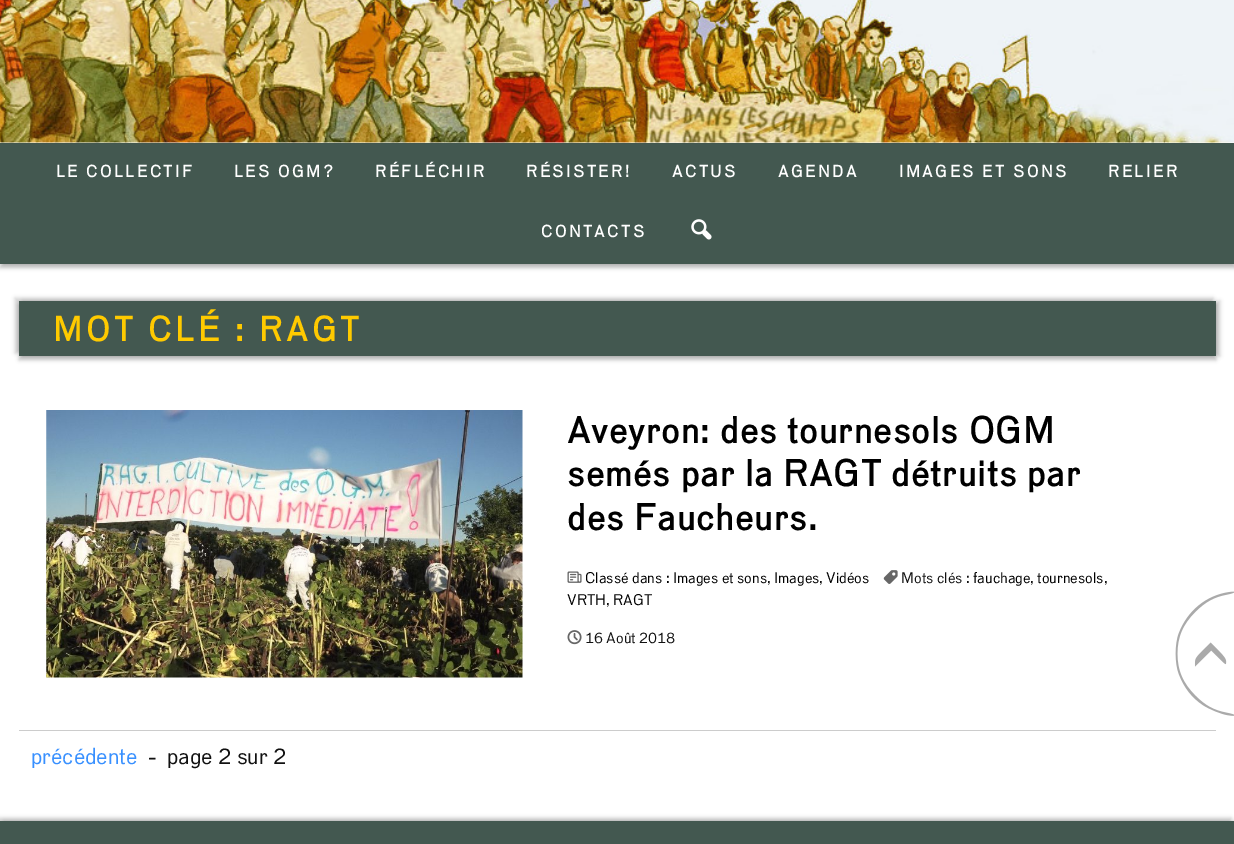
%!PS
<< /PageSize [1234 844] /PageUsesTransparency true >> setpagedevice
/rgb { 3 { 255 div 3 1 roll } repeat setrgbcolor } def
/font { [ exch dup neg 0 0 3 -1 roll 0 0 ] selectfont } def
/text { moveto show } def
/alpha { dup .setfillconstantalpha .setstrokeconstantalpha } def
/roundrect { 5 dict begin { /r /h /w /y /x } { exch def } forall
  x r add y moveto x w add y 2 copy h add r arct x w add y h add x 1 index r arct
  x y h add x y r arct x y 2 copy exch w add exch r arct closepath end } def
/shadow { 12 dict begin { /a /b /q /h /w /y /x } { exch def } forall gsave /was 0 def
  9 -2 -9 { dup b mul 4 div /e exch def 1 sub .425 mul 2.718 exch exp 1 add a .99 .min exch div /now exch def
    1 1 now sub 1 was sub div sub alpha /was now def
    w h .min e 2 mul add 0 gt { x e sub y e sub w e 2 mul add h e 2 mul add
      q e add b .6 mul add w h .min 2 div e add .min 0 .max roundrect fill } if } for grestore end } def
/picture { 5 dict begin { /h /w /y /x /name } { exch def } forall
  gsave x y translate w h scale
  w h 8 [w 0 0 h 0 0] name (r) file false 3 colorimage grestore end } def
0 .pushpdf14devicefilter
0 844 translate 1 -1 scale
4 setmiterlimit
255 255 255 rgb
0 0 1234 844 rectfill
0 0 0 rgb
0 -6 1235 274 0 2 0.23 shadow
4 -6 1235 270 0 2 0.19 shadow
(img_01.rgb) 0 0 1234 143 picture
(img_02.rgb) 634 0 17 2 picture
67 88 80 rgb
0 143 1234 121 rectfill
(img_03.rgb) 691 219 21 21 picture
0 0 0 rgb
19 305 1197 55 0 2 0.23 shadow
23 301 1197 55 0 2 0.19 shadow
15 298 1198 55 0 2 0.19 shadow
67 88 80 rgb
19 301 1197 55 rectfill
204 204 204 rgb
19 730 1197 1 rectfill
(img_04.rgb) 46 410 477 268 picture
(img_05.rgb) 567 571 15 12 picture
(img_06.rgb) 883 570 15 14 picture
(img_07.rgb) 567 630 15 15 picture
(img_08.rgb) 1175 591 59 125 picture
0 0 0 rgb
4 821 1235 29 0 2 0.19 shadow
-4 818 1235 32 0 2 0.19 shadow
67 88 80 rgb
0 821 1234 23 rectfill
/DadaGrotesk-Bold 16.25 font
255 255 255 rgb
56 177 moveto 2.5 0 (LE COLLECTIF) ashow
234 177 moveto 2.5 0 (LES OGM?) ashow
375 177 moveto 2.5 0 (RÉFLÉCHIR) ashow
526 177 moveto 2.5 0 (RÉSISTER!) ashow
672 177 moveto 2.5 0 (ACTUS) ashow
778 177 moveto 2.5 0 (AGENDA) ashow
899 177 moveto 2.5 0 (IMAGES ET SONS) ashow
1108 177 moveto 2.5 0 (RELIER) ashow
541 237 moveto 2.5 0 (CONTACTS) ashow
/DadaGrotesk-Bold 33.75 font
255 202 0 rgb
53 341 moveto 4 0 (MOT CLÉ : RAGT) ashow
/DadaGrotesk-Bold 36 font
0 0 0 rgb
567 443 moveto 1.25 0 (Aveyron: des tournesols OGM) ashow
567 486 moveto 1.25 0 (semés par la RAGT détruits par) ashow
567 530 moveto 1.25 0 (des Faucheurs.) ashow
/DadaGrotesk-Regular 15 font
(Classé dans : Images et sons) 585 583 text
17 17 17 rgb
(,) 767 583 text
0 0 0 rgb
(Images) 774 583 text
17 17 17 rgb
(,) 819 583 text
0 0 0 rgb
(Vidéos) 826 583 text
17 17 17 rgb
(Mots clés :) 901 583 text
0 0 0 rgb
(fauchage) 973 583 text
17 17 17 rgb
(,) 1030 583 text
0 0 0 rgb
(tournesols) 1037 583 text
17 17 17 rgb
(,) 1104 583 text
0 0 0 rgb
(VRTH) 567 605 text
17 17 17 rgb
(,) 606 605 text
0 0 0 rgb
(RAGT) 613 605 text
17 17 17 rgb
(16 Août 2018) 585 643 text
/DadaGrotesk-Regular 22.5 font
56 144 255 rgb
(précédente) 31 764 text
17 17 17 rgb
(-) 148 764 text
(page 2 sur 2) 167 764 text
.poppdf14devicefilter showpage
